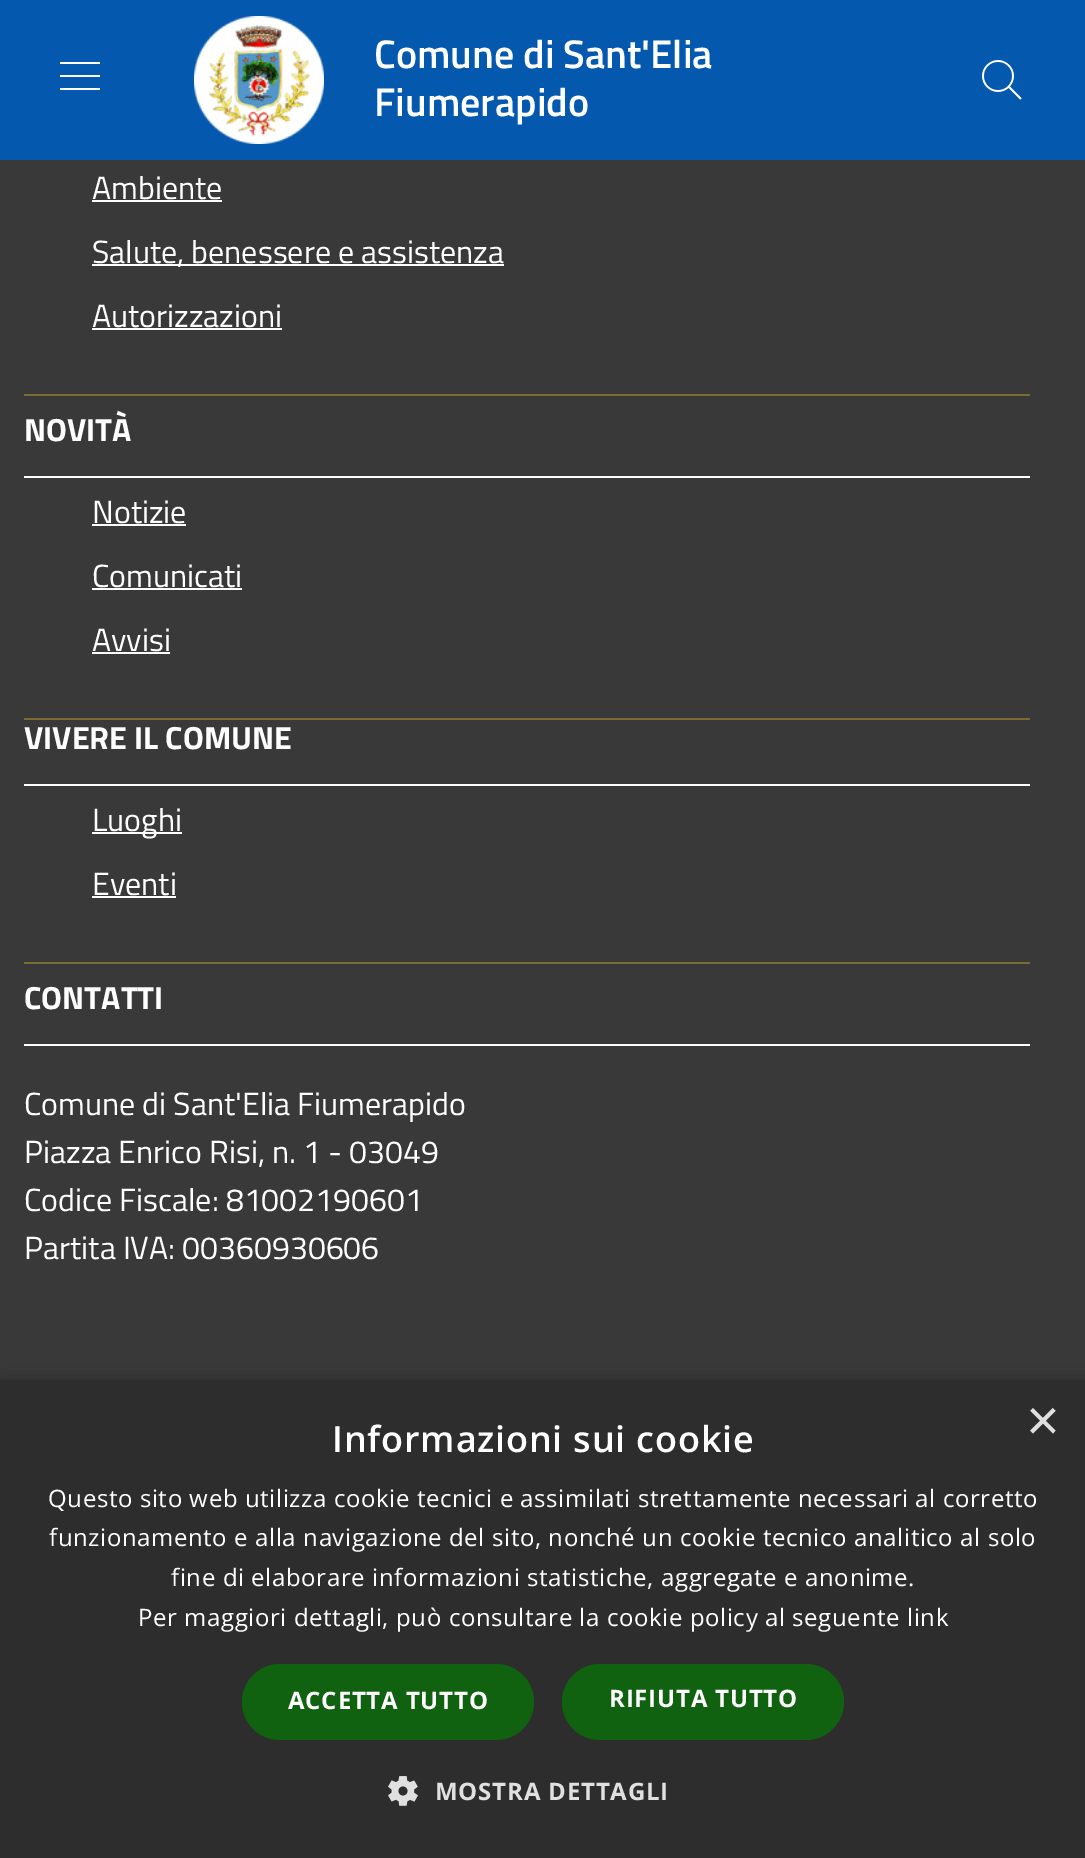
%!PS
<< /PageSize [1085 1858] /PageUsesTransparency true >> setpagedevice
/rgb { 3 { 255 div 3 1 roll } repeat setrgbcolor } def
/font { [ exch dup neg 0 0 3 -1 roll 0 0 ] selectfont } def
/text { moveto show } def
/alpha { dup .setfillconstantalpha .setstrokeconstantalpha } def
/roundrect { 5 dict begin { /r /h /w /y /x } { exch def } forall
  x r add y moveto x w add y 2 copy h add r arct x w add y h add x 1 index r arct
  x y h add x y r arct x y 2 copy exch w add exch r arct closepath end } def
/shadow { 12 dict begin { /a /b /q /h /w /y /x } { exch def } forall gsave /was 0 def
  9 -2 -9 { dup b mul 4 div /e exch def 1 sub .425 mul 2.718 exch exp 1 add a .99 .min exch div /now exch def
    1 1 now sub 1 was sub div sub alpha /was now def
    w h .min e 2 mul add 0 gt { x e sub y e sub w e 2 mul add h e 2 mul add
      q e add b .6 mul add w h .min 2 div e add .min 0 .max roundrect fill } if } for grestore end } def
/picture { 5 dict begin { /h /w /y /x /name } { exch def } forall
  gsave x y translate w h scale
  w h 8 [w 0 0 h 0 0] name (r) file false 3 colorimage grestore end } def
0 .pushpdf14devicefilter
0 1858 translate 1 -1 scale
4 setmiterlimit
57 57 57 rgb
0 0 1085 1858 rectfill
4 88 173 rgb
0 0 1085 160 rectfill
(img_01.rgb) 60 62 40 28 picture
(img_02.rgb) 194 16 130 128 picture
(img_03.rgb) 982 60 40 40 picture
121 108 49 rgb
24 394 1006 2 rectfill
255 255 255 rgb
92 200 130 2 rectfill
92 264 412 2 rectfill
92 328 190 2 rectfill
24 476 1006 2 rectfill
121 108 49 rgb
24 718 1006 2 rectfill
255 255 255 rgb
92 524 94 2 rectfill
92 588 150 2 rectfill
92 652 78 2 rectfill
24 784 1006 2 rectfill
121 108 49 rgb
24 962 1006 2 rectfill
255 255 255 rgb
92 832 90 2 rectfill
92 896 84 2 rectfill
24 1044 1006 2 rectfill
0 0 0 rgb
2 1384 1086 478 0 8 0.35 shadow
45 45 45 rgb
0 1380 1085 478 rectfill
16 97 16 rgb
242 1664 292 76 38 roundrect fill
562 1664 282 76 38 roundrect fill
(img_04.rgb) 388 1776 30 30 picture
/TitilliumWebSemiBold-SemiBold 40 font
255 255 255 rgb
(Comune di Sant'Elia) 374 68 text
(Fiumerapido) 374 116 text
/TitilliumWeb-Regular 32 font
(Ambiente) 92 199 text
(Salute, benessere e assistenza) 92 263 text
(Autorizzazioni) 92 327 text
/TitilliumWeb-Bold 32 font
(NOVITÀ) 24 441 text
/TitilliumWeb-Regular 32 font
(Notizie) 92 523 text
(Comunicati) 92 587 text
(Avvisi) 92 651 text
/TitilliumWeb-Bold 32 font
(VIVERE IL COMUNE) 24 749 text
/TitilliumWeb-Regular 32 font
(Luoghi) 92 831 text
(Eventi) 92 895 text
/TitilliumWeb-Bold 32 font
(CONTATTI) 24 1009 text
/TitilliumWeb-Regular 32 font
(Comune di Sant'Elia Fiumerapido) 24 1115 text
(Piazza Enrico Risi, n. 1 - 03049) 24 1163 text
(Codice Fiscale: 81002190601) 24 1211 text
(Partita IVA: 00360930606) 24 1259 text
/LiberationSans-Regular 58 font
224 224 224 rgb
(×) 1026 1440 text
/OpenSans-SemiBold 36 font
255 255 255 rgb
332 1452 moveto 0.8 0 (Informazioni sui cookie) ashow
/OpenSans-Regular 24 font
48 1507 moveto 0.6 0 (Questo sito web utilizza cookie tecnici e assimilati strettamente necessari al corretto) ashow
49 1546 moveto 0.6 0 (funzionamento e alla navigazione del sito, nonché un cookie tecnico analitico al solo) ashow
171 1586 moveto 0.6 0 (fine di elaborare informazioni statistiche, aggregate e anonime.) ashow
138 1626 moveto 0.6 0 (Per maggiori dettagli, può consultare la cookie policy al seguente link) ashow
/OpenSans-Bold 24 font
288 1709 moveto 0.8 0 (ACCETTA TUTTO) ashow
609 1707 moveto 0.8 0 (RIFIUTA TUTTO) ashow
224 224 224 rgb
435 1800 moveto 0.8 0 (MOSTRA DETTAGLI) ashow
.poppdf14devicefilter showpage
